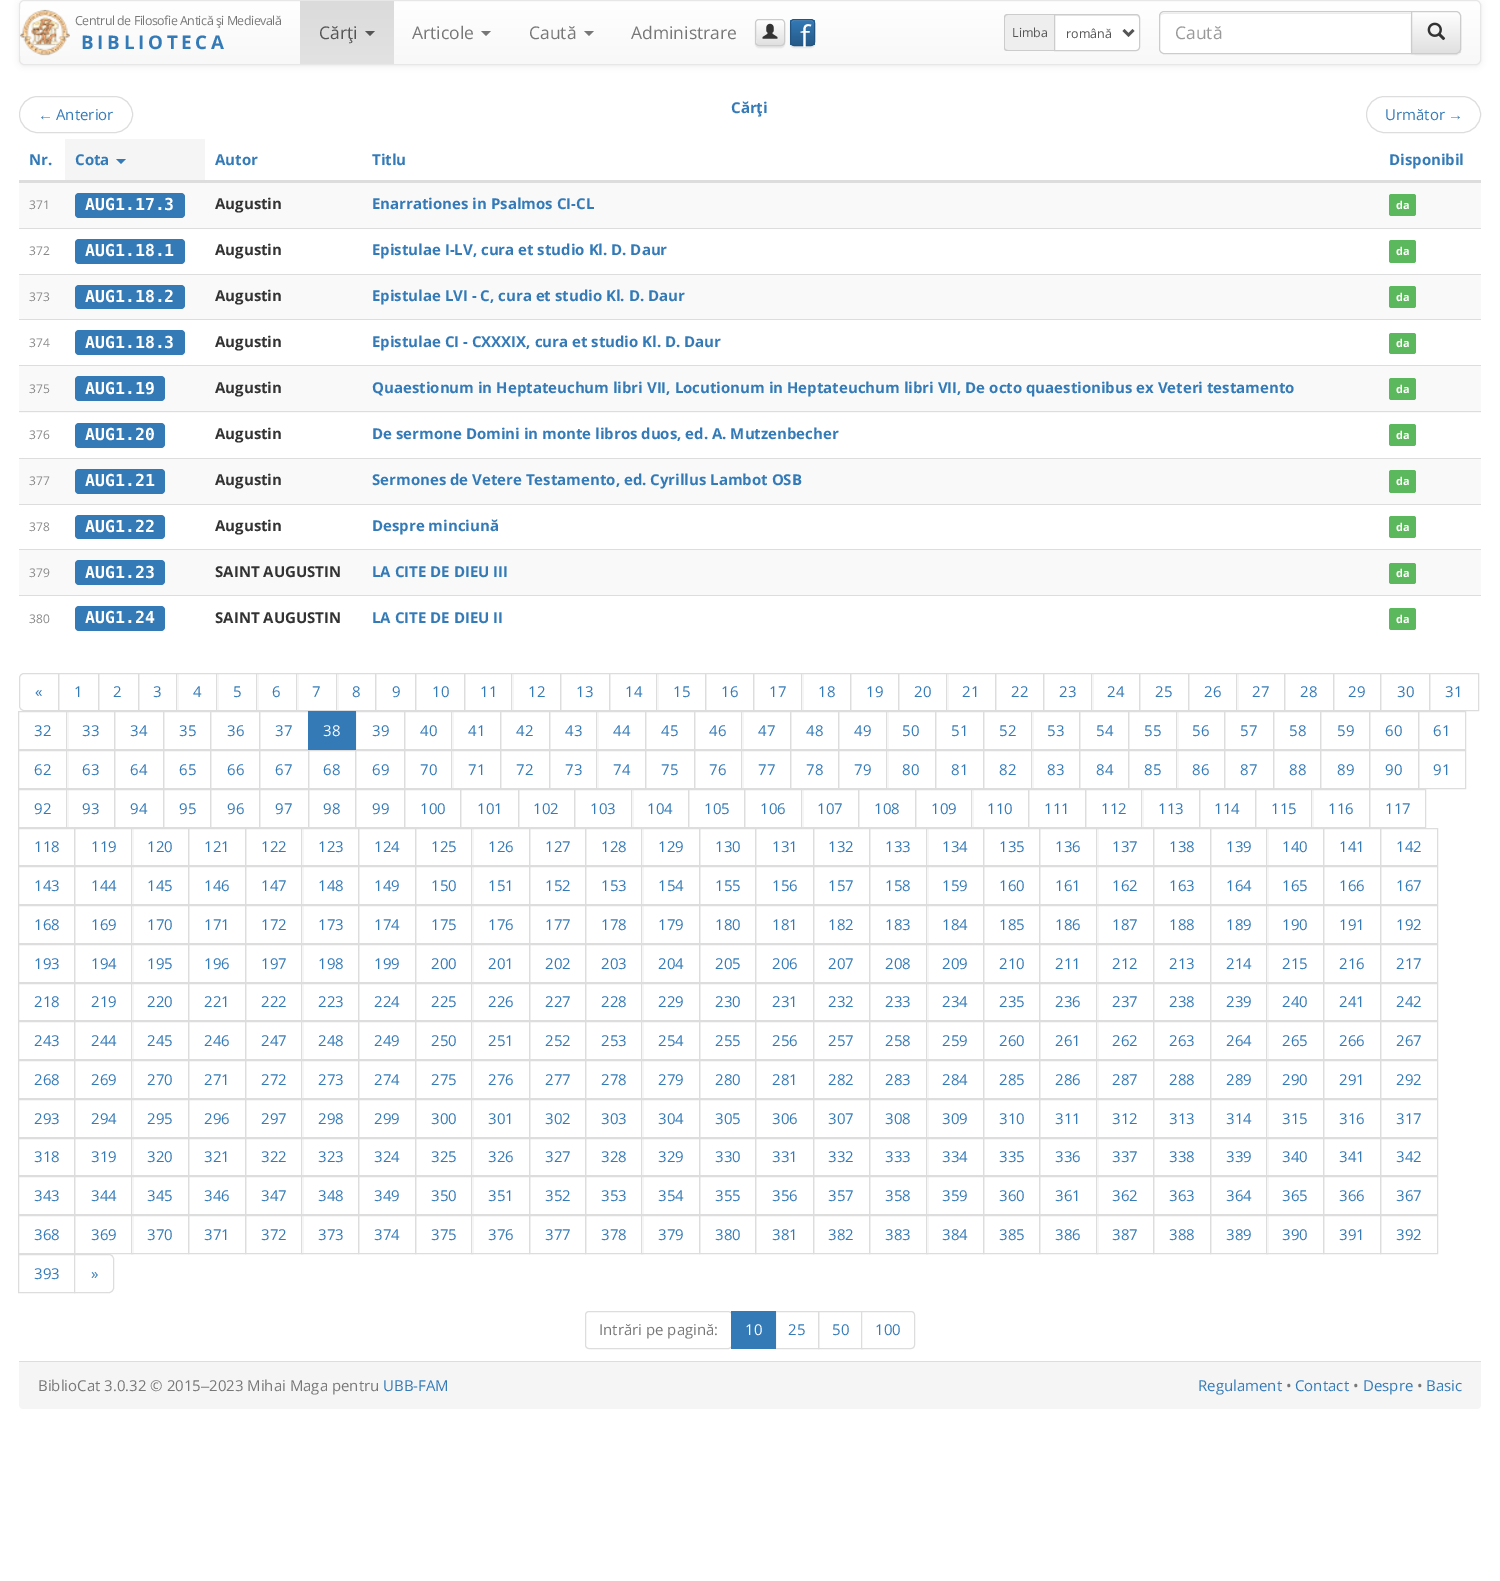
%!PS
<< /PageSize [1500 1581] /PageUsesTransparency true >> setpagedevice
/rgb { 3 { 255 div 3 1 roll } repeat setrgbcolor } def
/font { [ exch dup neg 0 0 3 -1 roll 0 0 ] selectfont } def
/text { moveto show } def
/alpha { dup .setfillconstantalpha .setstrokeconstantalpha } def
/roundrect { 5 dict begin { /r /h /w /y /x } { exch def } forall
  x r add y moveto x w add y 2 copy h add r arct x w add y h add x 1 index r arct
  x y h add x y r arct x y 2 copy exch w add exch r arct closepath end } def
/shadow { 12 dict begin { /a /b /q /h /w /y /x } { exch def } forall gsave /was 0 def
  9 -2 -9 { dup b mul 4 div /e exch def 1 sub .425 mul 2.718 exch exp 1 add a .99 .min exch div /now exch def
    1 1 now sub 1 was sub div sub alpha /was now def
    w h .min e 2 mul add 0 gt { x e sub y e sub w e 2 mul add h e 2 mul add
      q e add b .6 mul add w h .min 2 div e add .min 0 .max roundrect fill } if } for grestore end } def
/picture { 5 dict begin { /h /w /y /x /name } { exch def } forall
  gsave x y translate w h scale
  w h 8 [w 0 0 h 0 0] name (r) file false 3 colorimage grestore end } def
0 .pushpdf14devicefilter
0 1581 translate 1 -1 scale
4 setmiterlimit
255 255 255 rgb
0 0 1500 1581 rectfill
0 0 0 rgb
19 1 1462 65 5 3 0.07 shadow
gsave
19 0 1462 65 5 roundrect clip newpath
gsave 19 1 moveto 1462 0 rlineto 0 63 rlineto -1462 0 rlineto closepath clip newpath
<< /ShadingType 2 /ColorSpace /DeviceRGB /Coords [750 1.2 750 64] /Extend [true true] /Function << /FunctionType 2 /Domain [0 1] /C0 [1 1 1] /C1 [0.973 0.973 0.973] /N 1 >> >> shfill grestore
grestore
231 231 231 rgb
19.5 0.5 1461 64 4.5 roundrect stroke
(img_01.rgb) 20 9 50 47 picture
gsave 300 1 moveto 94 0 rlineto 0 63 rlineto -94 0 rlineto closepath clip newpath
<< /ShadingType 2 /ColorSpace /DeviceRGB /Coords [347 1.2 347 64] /Extend [true true] /Function << /FunctionType 2 /Domain [0 1] /C0 [0.859 0.859 0.859] /C1 [0.886 0.886 0.886] /N 1 >> >> shfill grestore
85 85 85 rgb
365 31 moveto 10 0 rlineto -5 5 rlineto closepath fill
119 119 119 rgb
481 31 moveto 10 0 rlineto -5 5 rlineto closepath fill
584 31 moveto 10 0 rlineto -5 5 rlineto closepath fill
0 0 0 rgb
755 20 30 28 4 0.5 0.07 shadow
gsave
755 19 30 27 4 roundrect clip newpath
gsave 755 20 moveto 30 0 rlineto 0 25 rlineto -30 0 rlineto closepath clip newpath
<< /ShadingType 2 /ColorSpace /DeviceRGB /Coords [770 20 770 45] /Extend [true true] /Function << /FunctionType 2 /Domain [0 1] /C0 [1 1 1] /C1 [0.878 0.878 0.878] /N 1 >> >> shfill grestore
grestore
254 254 254 rgb
759 21 moveto 5.5 0 20.5 -1.5 24 1 rcurveto 1 2.5 rlineto 0 -5 -1.5 -4.5 -6.5 -4.5 rcurveto -15 0 rlineto -5.5 0 -6.5 -0.5 -6.5 5 rcurveto 0 -2 1 -4 3 -4 rcurveto closepath 756.5 43.5 moveto -0.5 -6.5 rlineto 0 2 -0.5 5 0.5 6.5 rcurveto closepath eofill
204 204 204 rgb
755.5 19.5 29 26 3.5 roundrect stroke
(img_02.rgb) 762 23 16 16 picture
0 0 0 rgb
790 20 25 28 4 0.5 0.07 shadow
gsave
790 19 25 27 4 roundrect clip newpath
gsave 790 20 moveto 25 0 rlineto 0 25 rlineto -25 0 rlineto closepath clip newpath
<< /ShadingType 2 /ColorSpace /DeviceRGB /Coords [803 20 803 45] /Extend [true true] /Function << /FunctionType 2 /Domain [0 1] /C0 [0.2 0.478 0.718] /C1 [0.149 0.353 0.533] /N 1 >> >> shfill grestore
grestore
82 141 193 rgb
794 21 moveto 17 0 rlineto 2 0 3 1 3 3 rcurveto 0 -4.5 -1.5 -4 -5.5 -4 rcurveto -12 0 rlineto -4 0 -5.5 -0.5 -5.5 4 rcurveto 0 -2 1 -3 3 -3 rcurveto closepath fill
36 85 128 rgb
790.5 19.5 24 26 3.5 roundrect stroke
238 238 238 rgb
1008 14 moveto 46 0 rlineto 0 37 rlineto -46 0 rlineto -2 0 -4 -2 -4 -4 rcurveto 0 -29 rlineto 0 -2 2 -4 4 -4 rcurveto closepath fill
204 204 204 rgb
1008 14 moveto 46 0 rlineto 0 37 rlineto -46 0 rlineto -3 0 -4 -1 -4 -3 rcurveto 0 -30 rlineto 0 -3 1 -4 4 -4 rcurveto closepath 1008 15 moveto 46 0 rlineto 0 35 rlineto -46 0 rlineto -2 0 -3 -1 -3 -2 rcurveto 0 -30 rlineto 0 -2 1 -3 3 -3 rcurveto closepath eofill
255 255 255 rgb
1054 14 moveto 82 0 rlineto 2 0 4 2 4 4 rcurveto 0 29 rlineto 0 2 -2 4 -4 4 rcurveto -82 0 rlineto closepath fill
236 236 236 rgb
1055 16 moveto 81 0 rlineto 2 0 3 1 3 3 rcurveto 0 -1 rlineto 0 -2 -1 -3 -3 -3 rcurveto -81 0 rlineto closepath fill
204 204 204 rgb
1054.5 14.5 moveto 81.5 0 rlineto 2 0 3.5 1.5 3.5 3.5 rcurveto 0 29 rlineto 0 2 -1.5 3.5 -3.5 3.5 rcurveto -81.5 0 rlineto closepath stroke
85 85 85 rgb
2.5 setlinewidth
1123.5 30 moveto 5 5 rlineto 5 -5 rlineto stroke
255 255 255 rgb
1164 11 moveto 249 0 rlineto 0 43 rlineto -249 0 rlineto -3 0 -5 -2 -5 -5 rcurveto 0 -33 rlineto 0 -3 2 -5 5 -5 rcurveto closepath fill
236 236 236 rgb
1164 14 moveto 247 0 rlineto 0 -1 rlineto -247 0 rlineto -2 0 -4 2 -4 4 rcurveto 0 1 rlineto 0 -3 2 -4 4 -4 rcurveto closepath fill
204 204 204 rgb
1 setlinewidth
1164 11.5 moveto 248.5 0 rlineto 0 42 rlineto -248.5 0 rlineto -2.5 0 -4.5 -2 -4.5 -4.5 rcurveto 0 -33 rlineto 0 -2.5 2 -4.5 4.5 -4.5 rcurveto closepath stroke
0 0 0 rgb
1411 13 50 42 5 0.5 0.07 shadow
255 255 255 rgb
1411 11 moveto 45 0 rlineto 3 0 5 2 5 5 rcurveto 0 33 rlineto 0 3 -2 5 -5 5 rcurveto -45 0 rlineto closepath fill
gsave
1411 11 moveto 45 0 rlineto 3 0 5 2 5 5 rcurveto 0 33 rlineto 0 3 -2 5 -5 5 rcurveto -45 0 rlineto closepath clip newpath
gsave 1412 13 moveto 49 0 rlineto 0 40 rlineto -49 0 rlineto closepath clip newpath
<< /ShadingType 2 /ColorSpace /DeviceRGB /Coords [1436 12 1436 53] /Extend [true true] /Function << /FunctionType 2 /Domain [0 1] /C0 [1 1 1] /C1 [0.878 0.878 0.878] /N 1 >> >> shfill grestore
grestore
204 204 204 rgb
1411.5 11.5 moveto 44.5 0 rlineto 2.5 0 4.5 2 4.5 4.5 rcurveto 0 33 rlineto 0 2.5 -2 4.5 -4.5 4.5 rcurveto -44.5 0 rlineto closepath stroke
(img_03.rgb) 1427 22 19 19 picture
221 221 221 rgb
19.5 96.5 113 36 18 roundrect stroke
1366.5 96.5 114 36 18 roundrect stroke
245 245 245 rgb
65 139 140 41 rectfill
51 122 183 rgb
116 159 moveto 10 0 rlineto -5 5 rlineto closepath fill
221 221 221 rgb
19 180 1462 3 rectfill
249 249 249 rgb
19 183 1462 45 rectfill
51 122 183 rgb
75 193 110 25 4 roundrect fill
92 184 92 rgb
1389 194 27 22 2.5 roundrect fill
51 122 183 rgb
75 239 110 25 4 roundrect fill
221 221 221 rgb
19 228 1462 1 rectfill
92 184 92 rgb
1389 240 27 23 2.5 roundrect fill
249 249 249 rgb
19 275 1462 44 rectfill
51 122 183 rgb
75 285 110 24 4 roundrect fill
221 221 221 rgb
19 274 1462 1 rectfill
92 184 92 rgb
1389 286 27 22 2.5 roundrect fill
51 122 183 rgb
75 330 110 25 4 roundrect fill
221 221 221 rgb
19 319 1462 1 rectfill
92 184 92 rgb
1389 333 27 21 2.5 roundrect fill
249 249 249 rgb
19 366 1462 47 rectfill
51 122 183 rgb
75 376 90 25 4 roundrect fill
221 221 221 rgb
19 365 1462 1 rectfill
92 184 92 rgb
1389 378 27 22 2.5 roundrect fill
51 122 183 rgb
75 423 90 25 4 roundrect fill
221 221 221 rgb
19 411 1462 1 rectfill
92 184 92 rgb
1389 424 27 22 2.5 roundrect fill
249 249 249 rgb
19 459 1462 45 rectfill
51 122 183 rgb
75 469 90 25 4 roundrect fill
221 221 221 rgb
19 458 1462 1 rectfill
92 184 92 rgb
1389 470 27 23 2.5 roundrect fill
51 122 183 rgb
75 515 90 24 4 roundrect fill
221 221 221 rgb
19 504 1462 1 rectfill
92 184 92 rgb
1389 516 27 22 2.5 roundrect fill
249 249 249 rgb
19 550 1462 45 rectfill
51 122 183 rgb
75 560 90 25 4 roundrect fill
221 221 221 rgb
19 549 1462 1 rectfill
92 184 92 rgb
1389 563 27 21 2.5 roundrect fill
51 122 183 rgb
75 606 90 25 4 roundrect fill
221 221 221 rgb
19 595 1462 1 rectfill
92 184 92 rgb
1389 608 27 22 2.5 roundrect fill
221 221 221 rgb
24 673.5 moveto 34.5 0 rlineto 0 37 rlineto -34.5 0 rlineto -2.5 0 -4.5 -2 -4.5 -4.5 rcurveto 0 -28 rlineto 0 -2.5 2 -4.5 4.5 -4.5 rcurveto closepath stroke
58.5 673.5 40 37 rectstroke
98.5 673.5 40 37 rectstroke
138.5 673.5 39 37 rectstroke
255 255 255 rgb
177 674 1 36 rectfill
221 221 221 rgb
176.5 673.5 41 37 rectstroke
255 255 255 rgb
217 674 1 36 rectfill
221 221 221 rgb
216.5 673.5 41 37 rectstroke
255 255 255 rgb
257 674 1 36 rectfill
221 221 221 rgb
256.5 673.5 41 37 rectstroke
255 255 255 rgb
297 674 1 36 rectfill
221 221 221 rgb
296.5 673.5 41 37 rectstroke
255 255 255 rgb
337 674 1 36 rectfill
221 221 221 rgb
336.5 673.5 39 37 rectstroke
375.5 673.5 40 37 rectstroke
415.5 673.5 49 37 rectstroke
464.5 673.5 48 37 rectstroke
255 255 255 rgb
512 674 1 36 rectfill
221 221 221 rgb
511.5 673.5 49 37 rectstroke
560.5 673.5 49 37 rectstroke
609.5 673.5 48 37 rectstroke
255 255 255 rgb
657 674 1 36 rectfill
221 221 221 rgb
656.5 673.5 49 37 rectstroke
705.5 673.5 48 37 rectstroke
753.5 673.5 49 37 rectstroke
255 255 255 rgb
802 674 1 36 rectfill
221 221 221 rgb
801.5 673.5 49 37 rectstroke
850.5 673.5 48 37 rectstroke
898.5 673.5 49 37 rectstroke
255 255 255 rgb
947 674 1 36 rectfill
221 221 221 rgb
946.5 673.5 49 37 rectstroke
995.5 673.5 48 37 rectstroke
1043.5 673.5 49 37 rectstroke
255 255 255 rgb
1092 674 1 36 rectfill
221 221 221 rgb
1091.5 673.5 48 37 rectstroke
1139.5 673.5 49 37 rectstroke
1188.5 673.5 49 37 rectstroke
255 255 255 rgb
1237 674 1 36 rectfill
221 221 221 rgb
1236.5 673.5 48 37 rectstroke
1284.5 673.5 49 37 rectstroke
1333.5 673.5 47 37 rectstroke
1380.5 673.5 49 37 rectstroke
1429.5 673.5 49 37 rectstroke
18.5 711.5 49 38 rectstroke
255 255 255 rgb
67 712 1 37 rectfill
221 221 221 rgb
66.5 711.5 48 38 rectstroke
114.5 711.5 49 38 rectstroke
163.5 711.5 47 38 rectstroke
210.5 711.5 49 38 rectstroke
259.5 711.5 49 38 rectstroke
355.5 711.5 49 38 rectstroke
51 122 183 rgb
308 711 48 39 rectfill
221 221 221 rgb
404.5 711.5 48 38 rectstroke
255 255 255 rgb
452 712 1 37 rectfill
221 221 221 rgb
451.5 711.5 49 38 rectstroke
500.5 711.5 49 38 rectstroke
549.5 711.5 48 38 rectstroke
255 255 255 rgb
597 712 1 37 rectfill
221 221 221 rgb
596.5 711.5 49 38 rectstroke
645.5 711.5 49 38 rectstroke
694.5 711.5 48 38 rectstroke
255 255 255 rgb
742 712 1 37 rectfill
221 221 221 rgb
741.5 711.5 49 38 rectstroke
790.5 711.5 48 38 rectstroke
838.5 711.5 49 38 rectstroke
255 255 255 rgb
887 712 1 37 rectfill
221 221 221 rgb
886.5 711.5 49 38 rectstroke
935.5 711.5 48 38 rectstroke
983.5 711.5 49 38 rectstroke
255 255 255 rgb
1032 712 1 37 rectfill
221 221 221 rgb
1031.5 711.5 48 38 rectstroke
1079.5 711.5 49 38 rectstroke
1128.5 711.5 49 38 rectstroke
255 255 255 rgb
1177 712 1 37 rectfill
221 221 221 rgb
1176.5 711.5 48 38 rectstroke
1224.5 711.5 49 38 rectstroke
1273.5 711.5 47 38 rectstroke
1320.5 711.5 49 38 rectstroke
1369.5 711.5 49 38 rectstroke
1418.5 711.5 47 38 rectstroke
18.5 750.5 49 38 rectstroke
255 255 255 rgb
67 751 1 37 rectfill
221 221 221 rgb
66.5 750.5 48 38 rectstroke
114.5 750.5 49 38 rectstroke
163.5 750.5 47 38 rectstroke
210.5 750.5 49 38 rectstroke
259.5 750.5 49 38 rectstroke
308.5 750.5 47 38 rectstroke
355.5 750.5 49 38 rectstroke
404.5 750.5 48 38 rectstroke
255 255 255 rgb
452 751 1 37 rectfill
221 221 221 rgb
451.5 750.5 49 38 rectstroke
500.5 750.5 49 38 rectstroke
549.5 750.5 48 38 rectstroke
255 255 255 rgb
597 751 1 37 rectfill
221 221 221 rgb
596.5 750.5 49 38 rectstroke
645.5 750.5 49 38 rectstroke
694.5 750.5 48 38 rectstroke
255 255 255 rgb
742 751 1 37 rectfill
221 221 221 rgb
741.5 750.5 49 38 rectstroke
790.5 750.5 48 38 rectstroke
838.5 750.5 49 38 rectstroke
255 255 255 rgb
887 751 1 37 rectfill
221 221 221 rgb
886.5 750.5 49 38 rectstroke
935.5 750.5 48 38 rectstroke
983.5 750.5 49 38 rectstroke
255 255 255 rgb
1032 751 1 37 rectfill
221 221 221 rgb
1031.5 750.5 48 38 rectstroke
1079.5 750.5 49 38 rectstroke
1128.5 750.5 49 38 rectstroke
255 255 255 rgb
1177 751 1 37 rectfill
221 221 221 rgb
1176.5 750.5 48 38 rectstroke
1224.5 750.5 49 38 rectstroke
1273.5 750.5 47 38 rectstroke
1320.5 750.5 49 38 rectstroke
1369.5 750.5 49 38 rectstroke
1418.5 750.5 47 38 rectstroke
18.5 789.5 49 38 rectstroke
255 255 255 rgb
67 790 1 37 rectfill
221 221 221 rgb
66.5 789.5 48 38 rectstroke
114.5 789.5 49 38 rectstroke
163.5 789.5 47 38 rectstroke
210.5 789.5 49 38 rectstroke
259.5 789.5 49 38 rectstroke
308.5 789.5 47 38 rectstroke
355.5 789.5 49 38 rectstroke
404.5 789.5 56 38 rectstroke
460.5 789.5 58 38 rectstroke
518.5 789.5 56 38 rectstroke
574.5 789.5 58 38 rectstroke
255 255 255 rgb
632 790 1 37 rectfill
221 221 221 rgb
631.5 789.5 57 38 rectstroke
688.5 789.5 56 38 rectstroke
744.5 789.5 58 38 rectstroke
255 255 255 rgb
802 790 1 37 rectfill
221 221 221 rgb
801.5 789.5 57 38 rectstroke
858.5 789.5 57 38 rectstroke
915.5 789.5 57 38 rectstroke
255 255 255 rgb
972 790 1 37 rectfill
221 221 221 rgb
971.5 789.5 57 38 rectstroke
1028.5 789.5 57 38 rectstroke
1085.5 789.5 57 38 rectstroke
255 255 255 rgb
1142 790 1 37 rectfill
221 221 221 rgb
1141.5 789.5 58 38 rectstroke
1199.5 789.5 56 38 rectstroke
1255.5 789.5 57 38 rectstroke
255 255 255 rgb
1312 790 1 37 rectfill
221 221 221 rgb
1311.5 789.5 58 38 rectstroke
1369.5 789.5 56 38 rectstroke
18.5 828.5 56 37 rectstroke
74.5 828.5 58 37 rectstroke
255 255 255 rgb
132 829 1 36 rectfill
221 221 221 rgb
131.5 828.5 57 37 rectstroke
188.5 828.5 57 37 rectstroke
245.5 828.5 57 37 rectstroke
255 255 255 rgb
302 829 1 36 rectfill
221 221 221 rgb
301.5 828.5 57 37 rectstroke
358.5 828.5 57 37 rectstroke
415.5 828.5 57 37 rectstroke
255 255 255 rgb
472 829 1 36 rectfill
221 221 221 rgb
471.5 828.5 58 37 rectstroke
529.5 828.5 56 37 rectstroke
585.5 828.5 57 37 rectstroke
255 255 255 rgb
642 829 1 36 rectfill
221 221 221 rgb
641.5 828.5 58 37 rectstroke
699.5 828.5 56 37 rectstroke
755.5 828.5 58 37 rectstroke
813.5 828.5 56 37 rectstroke
869.5 828.5 58 37 rectstroke
255 255 255 rgb
927 829 1 36 rectfill
221 221 221 rgb
926.5 828.5 57 37 rectstroke
983.5 828.5 56 37 rectstroke
1039.5 828.5 58 37 rectstroke
255 255 255 rgb
1097 829 1 36 rectfill
221 221 221 rgb
1096.5 828.5 57 37 rectstroke
1153.5 828.5 57 37 rectstroke
1210.5 828.5 57 37 rectstroke
255 255 255 rgb
1267 829 1 36 rectfill
221 221 221 rgb
1266.5 828.5 57 37 rectstroke
1323.5 828.5 57 37 rectstroke
1380.5 828.5 57 37 rectstroke
18.5 866.5 56 38 rectstroke
74.5 866.5 58 38 rectstroke
255 255 255 rgb
132 867 1 37 rectfill
221 221 221 rgb
131.5 866.5 57 38 rectstroke
188.5 866.5 57 38 rectstroke
245.5 866.5 57 38 rectstroke
255 255 255 rgb
302 867 1 37 rectfill
221 221 221 rgb
301.5 866.5 57 38 rectstroke
358.5 866.5 57 38 rectstroke
415.5 866.5 57 38 rectstroke
255 255 255 rgb
472 867 1 37 rectfill
221 221 221 rgb
471.5 866.5 58 38 rectstroke
529.5 866.5 56 38 rectstroke
585.5 866.5 57 38 rectstroke
255 255 255 rgb
642 867 1 37 rectfill
221 221 221 rgb
641.5 866.5 58 38 rectstroke
699.5 866.5 56 38 rectstroke
755.5 866.5 58 38 rectstroke
813.5 866.5 56 38 rectstroke
869.5 866.5 58 38 rectstroke
255 255 255 rgb
927 867 1 37 rectfill
221 221 221 rgb
926.5 866.5 57 38 rectstroke
983.5 866.5 56 38 rectstroke
1039.5 866.5 58 38 rectstroke
255 255 255 rgb
1097 867 1 37 rectfill
221 221 221 rgb
1096.5 866.5 57 38 rectstroke
1153.5 866.5 57 38 rectstroke
1210.5 866.5 57 38 rectstroke
255 255 255 rgb
1267 867 1 37 rectfill
221 221 221 rgb
1266.5 866.5 57 38 rectstroke
1323.5 866.5 57 38 rectstroke
1380.5 866.5 57 38 rectstroke
18.5 905.5 56 38 rectstroke
74.5 905.5 58 38 rectstroke
255 255 255 rgb
132 906 1 37 rectfill
221 221 221 rgb
131.5 905.5 57 38 rectstroke
188.5 905.5 57 38 rectstroke
245.5 905.5 57 38 rectstroke
255 255 255 rgb
302 906 1 37 rectfill
221 221 221 rgb
301.5 905.5 57 38 rectstroke
358.5 905.5 57 38 rectstroke
415.5 905.5 57 38 rectstroke
255 255 255 rgb
472 906 1 37 rectfill
221 221 221 rgb
471.5 905.5 58 38 rectstroke
529.5 905.5 56 38 rectstroke
585.5 905.5 57 38 rectstroke
255 255 255 rgb
642 906 1 37 rectfill
221 221 221 rgb
641.5 905.5 58 38 rectstroke
699.5 905.5 56 38 rectstroke
755.5 905.5 58 38 rectstroke
813.5 905.5 56 38 rectstroke
869.5 905.5 58 38 rectstroke
255 255 255 rgb
927 906 1 37 rectfill
221 221 221 rgb
926.5 905.5 57 38 rectstroke
983.5 905.5 56 38 rectstroke
1039.5 905.5 58 38 rectstroke
255 255 255 rgb
1097 906 1 37 rectfill
221 221 221 rgb
1096.5 905.5 57 38 rectstroke
1153.5 905.5 57 38 rectstroke
1210.5 905.5 57 38 rectstroke
255 255 255 rgb
1267 906 1 37 rectfill
221 221 221 rgb
1266.5 905.5 57 38 rectstroke
1323.5 905.5 57 38 rectstroke
1380.5 905.5 57 38 rectstroke
18.5 944.5 56 38 rectstroke
74.5 944.5 58 38 rectstroke
255 255 255 rgb
132 945 1 37 rectfill
221 221 221 rgb
131.5 944.5 57 38 rectstroke
188.5 944.5 57 38 rectstroke
245.5 944.5 57 38 rectstroke
255 255 255 rgb
302 945 1 37 rectfill
221 221 221 rgb
301.5 944.5 57 38 rectstroke
358.5 944.5 57 38 rectstroke
415.5 944.5 57 38 rectstroke
255 255 255 rgb
472 945 1 37 rectfill
221 221 221 rgb
471.5 944.5 58 38 rectstroke
529.5 944.5 56 38 rectstroke
585.5 944.5 57 38 rectstroke
255 255 255 rgb
642 945 1 37 rectfill
221 221 221 rgb
641.5 944.5 58 38 rectstroke
699.5 944.5 56 38 rectstroke
755.5 944.5 58 38 rectstroke
813.5 944.5 56 38 rectstroke
869.5 944.5 58 38 rectstroke
255 255 255 rgb
927 945 1 37 rectfill
221 221 221 rgb
926.5 944.5 57 38 rectstroke
983.5 944.5 56 38 rectstroke
1039.5 944.5 58 38 rectstroke
255 255 255 rgb
1097 945 1 37 rectfill
221 221 221 rgb
1096.5 944.5 57 38 rectstroke
1153.5 944.5 57 38 rectstroke
1210.5 944.5 57 38 rectstroke
255 255 255 rgb
1267 945 1 37 rectfill
221 221 221 rgb
1266.5 944.5 57 38 rectstroke
1323.5 944.5 57 38 rectstroke
1380.5 944.5 57 38 rectstroke
18.5 983.5 56 37 rectstroke
74.5 983.5 58 37 rectstroke
255 255 255 rgb
132 984 1 36 rectfill
221 221 221 rgb
131.5 983.5 57 37 rectstroke
188.5 983.5 57 37 rectstroke
245.5 983.5 57 37 rectstroke
255 255 255 rgb
302 984 1 36 rectfill
221 221 221 rgb
301.5 983.5 57 37 rectstroke
358.5 983.5 57 37 rectstroke
415.5 983.5 57 37 rectstroke
255 255 255 rgb
472 984 1 36 rectfill
221 221 221 rgb
471.5 983.5 58 37 rectstroke
529.5 983.5 56 37 rectstroke
585.5 983.5 57 37 rectstroke
255 255 255 rgb
642 984 1 36 rectfill
221 221 221 rgb
641.5 983.5 58 37 rectstroke
699.5 983.5 56 37 rectstroke
755.5 983.5 58 37 rectstroke
813.5 983.5 56 37 rectstroke
869.5 983.5 58 37 rectstroke
255 255 255 rgb
927 984 1 36 rectfill
221 221 221 rgb
926.5 983.5 57 37 rectstroke
983.5 983.5 56 37 rectstroke
1039.5 983.5 58 37 rectstroke
255 255 255 rgb
1097 984 1 36 rectfill
221 221 221 rgb
1096.5 983.5 57 37 rectstroke
1153.5 983.5 57 37 rectstroke
1210.5 983.5 57 37 rectstroke
255 255 255 rgb
1267 984 1 36 rectfill
221 221 221 rgb
1266.5 983.5 57 37 rectstroke
1323.5 983.5 57 37 rectstroke
1380.5 983.5 57 37 rectstroke
18.5 1021.5 56 38 rectstroke
74.5 1021.5 58 38 rectstroke
255 255 255 rgb
132 1022 1 37 rectfill
221 221 221 rgb
131.5 1021.5 57 38 rectstroke
188.5 1021.5 57 38 rectstroke
245.5 1021.5 57 38 rectstroke
255 255 255 rgb
302 1022 1 37 rectfill
221 221 221 rgb
301.5 1021.5 57 38 rectstroke
358.5 1021.5 57 38 rectstroke
415.5 1021.5 57 38 rectstroke
255 255 255 rgb
472 1022 1 37 rectfill
221 221 221 rgb
471.5 1021.5 58 38 rectstroke
529.5 1021.5 56 38 rectstroke
585.5 1021.5 57 38 rectstroke
255 255 255 rgb
642 1022 1 37 rectfill
221 221 221 rgb
641.5 1021.5 58 38 rectstroke
699.5 1021.5 56 38 rectstroke
755.5 1021.5 58 38 rectstroke
813.5 1021.5 56 38 rectstroke
869.5 1021.5 58 38 rectstroke
255 255 255 rgb
927 1022 1 37 rectfill
221 221 221 rgb
926.5 1021.5 57 38 rectstroke
983.5 1021.5 56 38 rectstroke
1039.5 1021.5 58 38 rectstroke
255 255 255 rgb
1097 1022 1 37 rectfill
221 221 221 rgb
1096.5 1021.5 57 38 rectstroke
1153.5 1021.5 57 38 rectstroke
1210.5 1021.5 57 38 rectstroke
255 255 255 rgb
1267 1022 1 37 rectfill
221 221 221 rgb
1266.5 1021.5 57 38 rectstroke
1323.5 1021.5 57 38 rectstroke
1380.5 1021.5 57 38 rectstroke
18.5 1060.5 56 38 rectstroke
74.5 1060.5 58 38 rectstroke
255 255 255 rgb
132 1061 1 37 rectfill
221 221 221 rgb
131.5 1060.5 57 38 rectstroke
188.5 1060.5 57 38 rectstroke
245.5 1060.5 57 38 rectstroke
255 255 255 rgb
302 1061 1 37 rectfill
221 221 221 rgb
301.5 1060.5 57 38 rectstroke
358.5 1060.5 57 38 rectstroke
415.5 1060.5 57 38 rectstroke
255 255 255 rgb
472 1061 1 37 rectfill
221 221 221 rgb
471.5 1060.5 58 38 rectstroke
529.5 1060.5 56 38 rectstroke
585.5 1060.5 57 38 rectstroke
255 255 255 rgb
642 1061 1 37 rectfill
221 221 221 rgb
641.5 1060.5 58 38 rectstroke
699.5 1060.5 56 38 rectstroke
755.5 1060.5 58 38 rectstroke
813.5 1060.5 56 38 rectstroke
869.5 1060.5 58 38 rectstroke
255 255 255 rgb
927 1061 1 37 rectfill
221 221 221 rgb
926.5 1060.5 57 38 rectstroke
983.5 1060.5 56 38 rectstroke
1039.5 1060.5 58 38 rectstroke
255 255 255 rgb
1097 1061 1 37 rectfill
221 221 221 rgb
1096.5 1060.5 57 38 rectstroke
1153.5 1060.5 57 38 rectstroke
1210.5 1060.5 57 38 rectstroke
255 255 255 rgb
1267 1061 1 37 rectfill
221 221 221 rgb
1266.5 1060.5 57 38 rectstroke
1323.5 1060.5 57 38 rectstroke
1380.5 1060.5 57 38 rectstroke
18.5 1099.5 56 38 rectstroke
74.5 1099.5 58 38 rectstroke
255 255 255 rgb
132 1100 1 37 rectfill
221 221 221 rgb
131.5 1099.5 57 38 rectstroke
188.5 1099.5 57 38 rectstroke
245.5 1099.5 57 38 rectstroke
255 255 255 rgb
302 1100 1 37 rectfill
221 221 221 rgb
301.5 1099.5 57 38 rectstroke
358.5 1099.5 57 38 rectstroke
415.5 1099.5 57 38 rectstroke
255 255 255 rgb
472 1100 1 37 rectfill
221 221 221 rgb
471.5 1099.5 58 38 rectstroke
529.5 1099.5 56 38 rectstroke
585.5 1099.5 57 38 rectstroke
255 255 255 rgb
642 1100 1 37 rectfill
221 221 221 rgb
641.5 1099.5 58 38 rectstroke
699.5 1099.5 56 38 rectstroke
755.5 1099.5 58 38 rectstroke
813.5 1099.5 56 38 rectstroke
869.5 1099.5 58 38 rectstroke
255 255 255 rgb
927 1100 1 37 rectfill
221 221 221 rgb
926.5 1099.5 57 38 rectstroke
983.5 1099.5 56 38 rectstroke
1039.5 1099.5 58 38 rectstroke
255 255 255 rgb
1097 1100 1 37 rectfill
221 221 221 rgb
1096.5 1099.5 57 38 rectstroke
1153.5 1099.5 57 38 rectstroke
1210.5 1099.5 57 38 rectstroke
255 255 255 rgb
1267 1100 1 37 rectfill
221 221 221 rgb
1266.5 1099.5 57 38 rectstroke
1323.5 1099.5 57 38 rectstroke
1380.5 1099.5 57 38 rectstroke
18.5 1138.5 56 37 rectstroke
74.5 1138.5 58 37 rectstroke
255 255 255 rgb
132 1139 1 36 rectfill
221 221 221 rgb
131.5 1138.5 57 37 rectstroke
188.5 1138.5 57 37 rectstroke
245.5 1138.5 57 37 rectstroke
255 255 255 rgb
302 1139 1 36 rectfill
221 221 221 rgb
301.5 1138.5 57 37 rectstroke
358.5 1138.5 57 37 rectstroke
415.5 1138.5 57 37 rectstroke
255 255 255 rgb
472 1139 1 36 rectfill
221 221 221 rgb
471.5 1138.5 58 37 rectstroke
529.5 1138.5 56 37 rectstroke
585.5 1138.5 57 37 rectstroke
255 255 255 rgb
642 1139 1 36 rectfill
221 221 221 rgb
641.5 1138.5 58 37 rectstroke
699.5 1138.5 56 37 rectstroke
755.5 1138.5 58 37 rectstroke
813.5 1138.5 56 37 rectstroke
869.5 1138.5 58 37 rectstroke
255 255 255 rgb
927 1139 1 36 rectfill
221 221 221 rgb
926.5 1138.5 57 37 rectstroke
983.5 1138.5 56 37 rectstroke
1039.5 1138.5 58 37 rectstroke
255 255 255 rgb
1097 1139 1 36 rectfill
221 221 221 rgb
1096.5 1138.5 57 37 rectstroke
1153.5 1138.5 57 37 rectstroke
1210.5 1138.5 57 37 rectstroke
255 255 255 rgb
1267 1139 1 36 rectfill
221 221 221 rgb
1266.5 1138.5 57 37 rectstroke
1323.5 1138.5 57 37 rectstroke
1380.5 1138.5 57 37 rectstroke
18.5 1176.5 56 38 rectstroke
74.5 1176.5 58 38 rectstroke
255 255 255 rgb
132 1177 1 37 rectfill
221 221 221 rgb
131.5 1176.5 57 38 rectstroke
188.5 1176.5 57 38 rectstroke
245.5 1176.5 57 38 rectstroke
255 255 255 rgb
302 1177 1 37 rectfill
221 221 221 rgb
301.5 1176.5 57 38 rectstroke
358.5 1176.5 57 38 rectstroke
415.5 1176.5 57 38 rectstroke
255 255 255 rgb
472 1177 1 37 rectfill
221 221 221 rgb
471.5 1176.5 58 38 rectstroke
529.5 1176.5 56 38 rectstroke
585.5 1176.5 57 38 rectstroke
255 255 255 rgb
642 1177 1 37 rectfill
221 221 221 rgb
641.5 1176.5 58 38 rectstroke
699.5 1176.5 56 38 rectstroke
755.5 1176.5 58 38 rectstroke
813.5 1176.5 56 38 rectstroke
869.5 1176.5 58 38 rectstroke
255 255 255 rgb
927 1177 1 37 rectfill
221 221 221 rgb
926.5 1176.5 57 38 rectstroke
983.5 1176.5 56 38 rectstroke
1039.5 1176.5 58 38 rectstroke
255 255 255 rgb
1097 1177 1 37 rectfill
221 221 221 rgb
1096.5 1176.5 57 38 rectstroke
1153.5 1176.5 57 38 rectstroke
1210.5 1176.5 57 38 rectstroke
255 255 255 rgb
1267 1177 1 37 rectfill
221 221 221 rgb
1266.5 1176.5 57 38 rectstroke
1323.5 1176.5 57 38 rectstroke
1380.5 1176.5 57 38 rectstroke
18.5 1215.5 56 38 rectstroke
74.5 1215.5 58 38 rectstroke
255 255 255 rgb
132 1216 1 37 rectfill
221 221 221 rgb
131.5 1215.5 57 38 rectstroke
188.5 1215.5 57 38 rectstroke
245.5 1215.5 57 38 rectstroke
255 255 255 rgb
302 1216 1 37 rectfill
221 221 221 rgb
301.5 1215.5 57 38 rectstroke
358.5 1215.5 57 38 rectstroke
415.5 1215.5 57 38 rectstroke
255 255 255 rgb
472 1216 1 37 rectfill
221 221 221 rgb
471.5 1215.5 58 38 rectstroke
529.5 1215.5 56 38 rectstroke
585.5 1215.5 57 38 rectstroke
255 255 255 rgb
642 1216 1 37 rectfill
221 221 221 rgb
641.5 1215.5 58 38 rectstroke
699.5 1215.5 56 38 rectstroke
755.5 1215.5 58 38 rectstroke
813.5 1215.5 56 38 rectstroke
869.5 1215.5 58 38 rectstroke
255 255 255 rgb
927 1216 1 37 rectfill
221 221 221 rgb
926.5 1215.5 57 38 rectstroke
983.5 1215.5 56 38 rectstroke
1039.5 1215.5 58 38 rectstroke
255 255 255 rgb
1097 1216 1 37 rectfill
221 221 221 rgb
1096.5 1215.5 57 38 rectstroke
1153.5 1215.5 57 38 rectstroke
1210.5 1215.5 57 38 rectstroke
255 255 255 rgb
1267 1216 1 37 rectfill
221 221 221 rgb
1266.5 1215.5 57 38 rectstroke
1323.5 1215.5 57 38 rectstroke
1380.5 1215.5 57 38 rectstroke
18.5 1254.5 56 38 rectstroke
255 255 255 rgb
74.5 1254.5 moveto 34.5 0 rlineto 2.5 0 4.5 2 4.5 4.5 rcurveto 0 29 rlineto 0 2.5 -2 4.5 -4.5 4.5 rcurveto -34.5 0 rlineto closepath gsave fill grestore
221 221 221 rgb
stroke
589 1311.5 moveto 139 0 rlineto 2.5 0 4.5 2 4.5 4.5 rcurveto 0 28 rlineto 0 2.5 -2 4.5 -4.5 4.5 rcurveto -139 0 rlineto -2 0 -3.5 -1.5 -3.5 -3.5 rcurveto 0 -30 rlineto 0 -2 1.5 -3.5 3.5 -3.5 rcurveto closepath stroke
775.5 1311.5 43 37 rectstroke
51 122 183 rgb
731 1311 45 38 rectfill
221 221 221 rgb
818.5 1311.5 44 37 rectstroke
255 255 255 rgb
861.5 1311.5 moveto 49.5 0 rlineto 2 0 3.5 1.5 3.5 3.5 rcurveto 0 30 rlineto 0 2 -1.5 3.5 -3.5 3.5 rcurveto -49.5 0 rlineto closepath gsave fill grestore
221 221 221 rgb
stroke
245 245 245 rgb
19 1361 moveto 1462 0 rlineto 0 44 rlineto 0 2 -2 4 -4 4 rcurveto -1454 0 rlineto -2 0 -4 -2 -4 -4 rcurveto closepath fill
221 221 221 rgb
19 1361 1462 1 rectfill
/OpenSans-Regular 12.5 font
119 119 119 rgb
75 25 moveto -0.5 0 (Centrul de Filosofie Antică şi Medievală) ashow
/OpenSans-Bold 18.75 font
51 122 183 rgb
81 49 moveto 3.75 0 (BIBLIOTECA) ashow
/OpenSans-Regular 17.5 font
85 85 85 rgb
(Cărţi) 319 39 text
119 119 119 rgb
(Articole) 412 39 text
(Caută) 529 39 text
(Administrare) 631 39 text
/OpenSans-Regular 30 font
255 255 255 rgb
(f) 800 47 text
/OpenSans-Regular 12.5 font
85 85 85 rgb
(Limba) 1012 37 text
(română) 1066 38 text
/OpenSans-Regular 17.5 font
153 153 153 rgb
(Caută) 1175 39 text
/LiberationSans-Regular 15 font
51 122 183 rgb
(←) 38 120 text
/OpenSans-Regular 15 font
(Anterior) 56 120 text
/OpenSans-Bold 15 font
(Cărţi) 731 113 text
/OpenSans-Regular 15 font
(Următor) 1385 120 text
/LiberationSans-Regular 15 font
(→) 1448 120 text
/OpenSans-Bold 15 font
(Nr.) 29 165 text
(Cota) 75 165 text
(Autor) 215 165 text
(Titlu) 372 165 text
(Disponibil) 1389 165 text
/OpenSans-Regular 12 font
136 136 136 rgb
(371) 29 209 text
/DejaVuSansMono-Bold 16.5 font
255 255 255 rgb
(AUG1.17.3) 85 210 text
/OpenSans-Bold 15 font
51 51 51 rgb
(Augustin) 215 209 text
51 122 183 rgb
(Enarrationes in Psalmos CI-CL) 372 209 text
/OpenSans-Bold 11 font
255 255 255 rgb
(da) 1396 209 text
/OpenSans-Regular 12 font
136 136 136 rgb
(372) 29 255 text
/DejaVuSansMono-Bold 16.5 font
255 255 255 rgb
(AUG1.18.1) 85 256 text
/OpenSans-Bold 15 font
51 51 51 rgb
(Augustin) 215 255 text
51 122 183 rgb
(Epistulae I-LV, cura et studio Kl. D. Daur) 372 255 text
/OpenSans-Bold 11 font
255 255 255 rgb
(da) 1396 255 text
/OpenSans-Regular 12 font
136 136 136 rgb
(373) 29 301 text
/DejaVuSansMono-Bold 16.5 font
255 255 255 rgb
(AUG1.18.2) 85 302 text
/OpenSans-Bold 15 font
51 51 51 rgb
(Augustin) 215 301 text
51 122 183 rgb
(Epistulae LVI - C, cura et studio Kl. D. Daur) 372 301 text
/OpenSans-Bold 11 font
255 255 255 rgb
(da) 1396 301 text
/OpenSans-Regular 12 font
136 136 136 rgb
(374) 29 347 text
/DejaVuSansMono-Bold 16.5 font
255 255 255 rgb
(AUG1.18.3) 85 348 text
/OpenSans-Bold 15 font
51 51 51 rgb
(Augustin) 215 347 text
51 122 183 rgb
(Epistulae CI - CXXXIX, cura et studio Kl. D. Daur) 372 347 text
/OpenSans-Bold 11 font
255 255 255 rgb
(da) 1396 347 text
/OpenSans-Regular 12 font
136 136 136 rgb
(375) 29 393 text
/DejaVuSansMono-Bold 16.5 font
255 255 255 rgb
(AUG1.19) 85 394 text
/OpenSans-Bold 15 font
51 51 51 rgb
(Augustin) 215 393 text
51 122 183 rgb
(Quaestionum in Heptateuchum libri VII, Locutionum in Heptateuchum libri VII, De octo quaestionibus ex Veteri testamento) 372 393 text
/OpenSans-Bold 11 font
255 255 255 rgb
(da) 1396 393 text
/OpenSans-Regular 12 font
136 136 136 rgb
(376) 29 439 text
/DejaVuSansMono-Bold 16.5 font
255 255 255 rgb
(AUG1.20) 85 440 text
/OpenSans-Bold 15 font
51 51 51 rgb
(Augustin) 215 439 text
51 122 183 rgb
(De sermone Domini in monte libros duos, ed. A. Mutzenbecher) 372 439 text
/OpenSans-Bold 11 font
255 255 255 rgb
(da) 1396 439 text
/OpenSans-Regular 12 font
136 136 136 rgb
(377) 29 485 text
/DejaVuSansMono-Bold 16.5 font
255 255 255 rgb
(AUG1.21) 85 486 text
/OpenSans-Bold 15 font
51 51 51 rgb
(Augustin) 215 485 text
51 122 183 rgb
(Sermones de Vetere Testamento, ed. Cyrillus Lambot OSB) 372 485 text
/OpenSans-Bold 11 font
255 255 255 rgb
(da) 1396 485 text
/OpenSans-Regular 12 font
136 136 136 rgb
(378) 29 531 text
/DejaVuSansMono-Bold 16.5 font
255 255 255 rgb
(AUG1.22) 85 532 text
/OpenSans-Bold 15 font
51 51 51 rgb
(Augustin) 215 531 text
51 122 183 rgb
(Despre minciună) 372 531 text
/OpenSans-Bold 11 font
255 255 255 rgb
(da) 1396 531 text
/OpenSans-Regular 12 font
136 136 136 rgb
(379) 29 577 text
/DejaVuSansMono-Bold 16.5 font
255 255 255 rgb
(AUG1.23) 85 578 text
/OpenSans-Bold 15 font
51 51 51 rgb
(SAINT AUGUSTIN) 215 577 text
51 122 183 rgb
(LA CITE DE DIEU III) 372 577 text
/OpenSans-Bold 11 font
255 255 255 rgb
(da) 1396 577 text
/OpenSans-Regular 12 font
136 136 136 rgb
(380) 29 623 text
/DejaVuSansMono-Bold 16.5 font
255 255 255 rgb
(AUG1.24) 85 623 text
/OpenSans-Bold 15 font
51 51 51 rgb
(SAINT AUGUSTIN) 215 623 text
51 122 183 rgb
(LA CITE DE DIEU II) 372 623 text
/OpenSans-Bold 11 font
255 255 255 rgb
(da) 1396 623 text
/OpenSans-Regular 15 font
51 122 183 rgb
(«) 35 697 text
(1) 74 697 text
(2) 113 697 text
(3) 153 697 text
(4) 193 697 text
(5) 233 697 text
(6) 272 697 text
(7) 312 697 text
(8) 352 697 text
(9) 392 697 text
(10) 432 697 text
(11) 480 697 text
(12) 528 697 text
(13) 576 697 text
(14) 625 697 text
(15) 673 697 text
(16) 721 697 text
(17) 769 697 text
(18) 818 697 text
(19) 866 697 text
(20) 914 697 text
(21) 962 697 text
(22) 1011 697 text
(23) 1059 697 text
(24) 1107 697 text
(25) 1155 697 text
(26) 1204 697 text
(27) 1252 697 text
(28) 1300 697 text
(29) 1348 697 text
(30) 1397 697 text
(31) 1445 697 text
(32) 34 736 text
(33) 82 736 text
(34) 130 736 text
(35) 179 736 text
(36) 227 736 text
(37) 275 736 text
255 255 255 rgb
(38) 323 736 text
51 122 183 rgb
(39) 372 736 text
(40) 420 736 text
(41) 468 736 text
(42) 516 736 text
(43) 565 736 text
(44) 613 736 text
(45) 661 736 text
(46) 709 736 text
(47) 758 736 text
(48) 806 736 text
(49) 854 736 text
(50) 902 736 text
(51) 951 736 text
(52) 999 736 text
(53) 1047 736 text
(54) 1096 736 text
(55) 1144 736 text
(56) 1192 736 text
(57) 1240 736 text
(58) 1289 736 text
(59) 1337 736 text
(60) 1385 736 text
(61) 1433 736 text
(62) 34 775 text
(63) 82 775 text
(64) 130 775 text
(65) 179 775 text
(66) 227 775 text
(67) 275 775 text
(68) 323 775 text
(69) 372 775 text
(70) 420 775 text
(71) 468 775 text
(72) 516 775 text
(73) 565 775 text
(74) 613 775 text
(75) 661 775 text
(76) 709 775 text
(77) 758 775 text
(78) 806 775 text
(79) 854 775 text
(80) 902 775 text
(81) 951 775 text
(82) 999 775 text
(83) 1047 775 text
(84) 1096 775 text
(85) 1144 775 text
(86) 1192 775 text
(87) 1240 775 text
(88) 1289 775 text
(89) 1337 775 text
(90) 1385 775 text
(91) 1433 775 text
(92) 34 814 text
(93) 82 814 text
(94) 130 814 text
(95) 179 814 text
(96) 227 814 text
(97) 275 814 text
(98) 323 814 text
(99) 372 814 text
(100) 420 814 text
(101) 477 814 text
(102) 533 814 text
(103) 590 814 text
(104) 647 814 text
(105) 704 814 text
(106) 760 814 text
(107) 817 814 text
(108) 874 814 text
(109) 931 814 text
(110) 987 814 text
(111) 1044 814 text
(112) 1101 814 text
(113) 1158 814 text
(114) 1214 814 text
(115) 1271 814 text
(116) 1328 814 text
(117) 1385 814 text
(118) 34 852 text
(119) 91 852 text
(120) 147 852 text
(121) 204 852 text
(122) 261 852 text
(123) 318 852 text
(124) 374 852 text
(125) 431 852 text
(126) 488 852 text
(127) 545 852 text
(128) 601 852 text
(129) 658 852 text
(130) 715 852 text
(131) 772 852 text
(132) 828 852 text
(133) 885 852 text
(134) 942 852 text
(135) 999 852 text
(136) 1055 852 text
(137) 1112 852 text
(138) 1169 852 text
(139) 1226 852 text
(140) 1282 852 text
(141) 1339 852 text
(142) 1396 852 text
(143) 34 891 text
(144) 91 891 text
(145) 147 891 text
(146) 204 891 text
(147) 261 891 text
(148) 318 891 text
(149) 374 891 text
(150) 431 891 text
(151) 488 891 text
(152) 545 891 text
(153) 601 891 text
(154) 658 891 text
(155) 715 891 text
(156) 772 891 text
(157) 828 891 text
(158) 885 891 text
(159) 942 891 text
(160) 999 891 text
(161) 1055 891 text
(162) 1112 891 text
(163) 1169 891 text
(164) 1226 891 text
(165) 1282 891 text
(166) 1339 891 text
(167) 1396 891 text
(168) 34 930 text
(169) 91 930 text
(170) 147 930 text
(171) 204 930 text
(172) 261 930 text
(173) 318 930 text
(174) 374 930 text
(175) 431 930 text
(176) 488 930 text
(177) 545 930 text
(178) 601 930 text
(179) 658 930 text
(180) 715 930 text
(181) 772 930 text
(182) 828 930 text
(183) 885 930 text
(184) 942 930 text
(185) 999 930 text
(186) 1055 930 text
(187) 1112 930 text
(188) 1169 930 text
(189) 1226 930 text
(190) 1282 930 text
(191) 1339 930 text
(192) 1396 930 text
(193) 34 969 text
(194) 91 969 text
(195) 147 969 text
(196) 204 969 text
(197) 261 969 text
(198) 318 969 text
(199) 374 969 text
(200) 431 969 text
(201) 488 969 text
(202) 545 969 text
(203) 601 969 text
(204) 658 969 text
(205) 715 969 text
(206) 772 969 text
(207) 828 969 text
(208) 885 969 text
(209) 942 969 text
(210) 999 969 text
(211) 1055 969 text
(212) 1112 969 text
(213) 1169 969 text
(214) 1226 969 text
(215) 1282 969 text
(216) 1339 969 text
(217) 1396 969 text
(218) 34 1007 text
(219) 91 1007 text
(220) 147 1007 text
(221) 204 1007 text
(222) 261 1007 text
(223) 318 1007 text
(224) 374 1007 text
(225) 431 1007 text
(226) 488 1007 text
(227) 545 1007 text
(228) 601 1007 text
(229) 658 1007 text
(230) 715 1007 text
(231) 772 1007 text
(232) 828 1007 text
(233) 885 1007 text
(234) 942 1007 text
(235) 999 1007 text
(236) 1055 1007 text
(237) 1112 1007 text
(238) 1169 1007 text
(239) 1226 1007 text
(240) 1282 1007 text
(241) 1339 1007 text
(242) 1396 1007 text
(243) 34 1046 text
(244) 91 1046 text
(245) 147 1046 text
(246) 204 1046 text
(247) 261 1046 text
(248) 318 1046 text
(249) 374 1046 text
(250) 431 1046 text
(251) 488 1046 text
(252) 545 1046 text
(253) 601 1046 text
(254) 658 1046 text
(255) 715 1046 text
(256) 772 1046 text
(257) 828 1046 text
(258) 885 1046 text
(259) 942 1046 text
(260) 999 1046 text
(261) 1055 1046 text
(262) 1112 1046 text
(263) 1169 1046 text
(264) 1226 1046 text
(265) 1282 1046 text
(266) 1339 1046 text
(267) 1396 1046 text
(268) 34 1085 text
(269) 91 1085 text
(270) 147 1085 text
(271) 204 1085 text
(272) 261 1085 text
(273) 318 1085 text
(274) 374 1085 text
(275) 431 1085 text
(276) 488 1085 text
(277) 545 1085 text
(278) 601 1085 text
(279) 658 1085 text
(280) 715 1085 text
(281) 772 1085 text
(282) 828 1085 text
(283) 885 1085 text
(284) 942 1085 text
(285) 999 1085 text
(286) 1055 1085 text
(287) 1112 1085 text
(288) 1169 1085 text
(289) 1226 1085 text
(290) 1282 1085 text
(291) 1339 1085 text
(292) 1396 1085 text
(293) 34 1124 text
(294) 91 1124 text
(295) 147 1124 text
(296) 204 1124 text
(297) 261 1124 text
(298) 318 1124 text
(299) 374 1124 text
(300) 431 1124 text
(301) 488 1124 text
(302) 545 1124 text
(303) 601 1124 text
(304) 658 1124 text
(305) 715 1124 text
(306) 772 1124 text
(307) 828 1124 text
(308) 885 1124 text
(309) 942 1124 text
(310) 999 1124 text
(311) 1055 1124 text
(312) 1112 1124 text
(313) 1169 1124 text
(314) 1226 1124 text
(315) 1282 1124 text
(316) 1339 1124 text
(317) 1396 1124 text
(318) 34 1162 text
(319) 91 1162 text
(320) 147 1162 text
(321) 204 1162 text
(322) 261 1162 text
(323) 318 1162 text
(324) 374 1162 text
(325) 431 1162 text
(326) 488 1162 text
(327) 545 1162 text
(328) 601 1162 text
(329) 658 1162 text
(330) 715 1162 text
(331) 772 1162 text
(332) 828 1162 text
(333) 885 1162 text
(334) 942 1162 text
(335) 999 1162 text
(336) 1055 1162 text
(337) 1112 1162 text
(338) 1169 1162 text
(339) 1226 1162 text
(340) 1282 1162 text
(341) 1339 1162 text
(342) 1396 1162 text
(343) 34 1201 text
(344) 91 1201 text
(345) 147 1201 text
(346) 204 1201 text
(347) 261 1201 text
(348) 318 1201 text
(349) 374 1201 text
(350) 431 1201 text
(351) 488 1201 text
(352) 545 1201 text
(353) 601 1201 text
(354) 658 1201 text
(355) 715 1201 text
(356) 772 1201 text
(357) 828 1201 text
(358) 885 1201 text
(359) 942 1201 text
(360) 999 1201 text
(361) 1055 1201 text
(362) 1112 1201 text
(363) 1169 1201 text
(364) 1226 1201 text
(365) 1282 1201 text
(366) 1339 1201 text
(367) 1396 1201 text
(368) 34 1240 text
(369) 91 1240 text
(370) 147 1240 text
(371) 204 1240 text
(372) 261 1240 text
(373) 318 1240 text
(374) 374 1240 text
(375) 431 1240 text
(376) 488 1240 text
(377) 545 1240 text
(378) 601 1240 text
(379) 658 1240 text
(380) 715 1240 text
(381) 772 1240 text
(382) 828 1240 text
(383) 885 1240 text
(384) 942 1240 text
(385) 999 1240 text
(386) 1055 1240 text
(387) 1112 1240 text
(388) 1169 1240 text
(389) 1226 1240 text
(390) 1282 1240 text
(391) 1339 1240 text
(392) 1396 1240 text
(393) 34 1279 text
(») 91 1279 text
119 119 119 rgb
(Intrări pe pagină:) 599 1335 text
255 255 255 rgb
(10) 745 1335 text
51 122 183 rgb
(25) 788 1335 text
(50) 832 1335 text
(100) 875 1335 text
119 119 119 rgb
(BiblioCat 3.0.32 © 2015) 38 1391 text
/LiberationSans-Regular 15 font
(‒) 201 1391 text
/OpenSans-Regular 15 font
(2023 Mihai Maga pentru) 209 1391 text
51 122 183 rgb
(UBB-FAM) 383 1391 text
(Regulament) 1198 1391 text
119 119 119 rgb
(•) 1286 1391 text
51 122 183 rgb
(Contact) 1295 1391 text
119 119 119 rgb
(•) 1353 1391 text
51 122 183 rgb
(Despre) 1363 1391 text
119 119 119 rgb
(•) 1417 1391 text
51 122 183 rgb
(Basic) 1426 1391 text
.poppdf14devicefilter showpage
